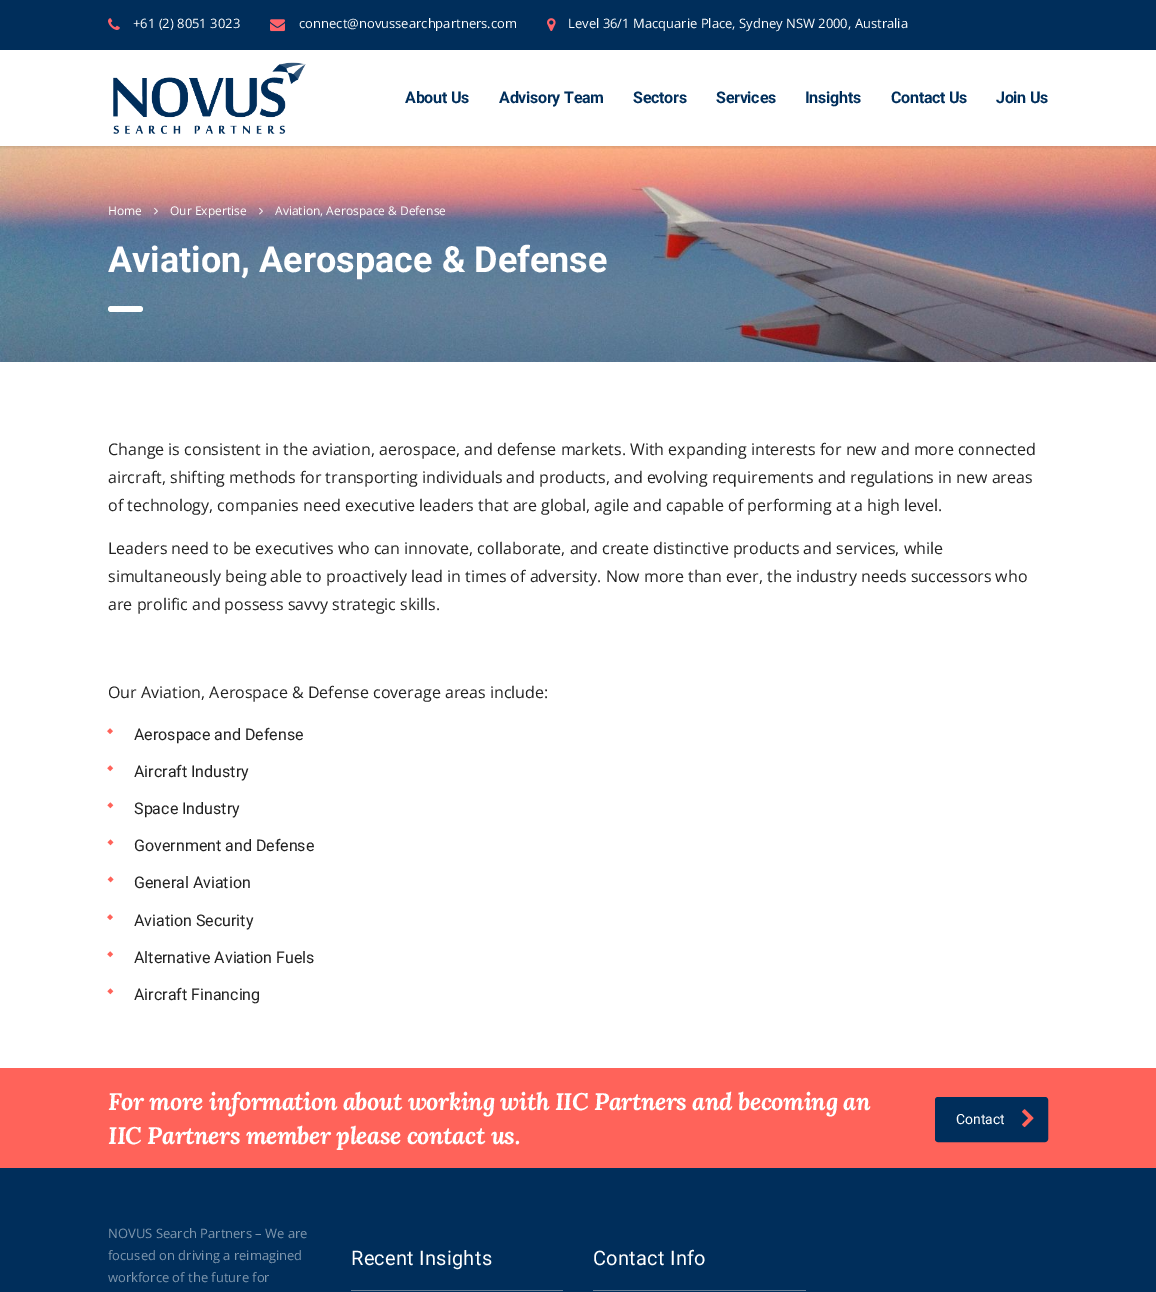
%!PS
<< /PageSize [1156 1292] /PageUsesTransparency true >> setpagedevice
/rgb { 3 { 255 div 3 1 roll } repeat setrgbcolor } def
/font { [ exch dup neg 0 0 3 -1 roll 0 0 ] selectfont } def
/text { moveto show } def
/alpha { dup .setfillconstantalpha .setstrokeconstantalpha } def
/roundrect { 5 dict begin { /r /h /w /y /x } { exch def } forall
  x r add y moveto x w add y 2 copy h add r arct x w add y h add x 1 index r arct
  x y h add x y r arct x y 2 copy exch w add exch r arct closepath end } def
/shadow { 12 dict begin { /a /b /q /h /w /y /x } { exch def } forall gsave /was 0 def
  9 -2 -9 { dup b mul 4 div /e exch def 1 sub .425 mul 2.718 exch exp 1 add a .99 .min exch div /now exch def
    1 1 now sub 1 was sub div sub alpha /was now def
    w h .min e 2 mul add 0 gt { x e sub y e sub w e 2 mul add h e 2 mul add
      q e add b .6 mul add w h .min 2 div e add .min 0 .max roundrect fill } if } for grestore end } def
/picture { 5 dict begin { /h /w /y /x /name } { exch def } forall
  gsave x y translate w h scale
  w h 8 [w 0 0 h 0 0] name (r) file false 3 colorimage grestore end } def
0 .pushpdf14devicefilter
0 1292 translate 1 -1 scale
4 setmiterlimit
255 255 255 rgb
0 0 1156 1292 rectfill
(img_05.rgb) 0 146 1156 216 picture
gsave
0 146 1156 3 rectclip
0 0 0 rgb
0 51 1156 96 0 1.5 0.15 shadow
grestore
0 46 91 rgb
0 0 1156 50 rectfill
(img_01.rgb) 108 18 12 12 picture
(img_02.rgb) 270 19 15 13 picture
(img_03.rgb) 547 18 9 13 picture
(img_04.rgb) 113 62 193 72 picture
(img_06.rgb) 154 207 4 8 picture
(img_07.rgb) 259 207 4 8 picture
255 255 255 rgb
108 306 35 6 3 roundrect fill
(img_08.rgb) 107 728 6 6 picture
(img_09.rgb) 107 765 7 7 picture
(img_10.rgb) 107 802 7 7 picture
(img_11.rgb) 107 839 7 7 picture
(img_12.rgb) 107 876 7 7 picture
(img_13.rgb) 107 914 6 6 picture
(img_14.rgb) 107 951 7 7 picture
(img_15.rgb) 107 988 7 7 picture
255 99 90 rgb
0 1068 1156 100 rectfill
0 46 91 rgb
936.5 1098.5 110 42 1.5 roundrect gsave fill grestore
3 setlinewidth
stroke
(img_16.rgb) 1022 1109 12 19 picture
0 1168 1156 124 rectfill
102 125 148 rgb
351 1290 212 1 rectfill
593 1290 213 1 rectfill
/OpenSans-Regular 13 font
255 255 255 rgb
(+61 \(2\) 8051 3023) 133 28 text
(connect@novussearchpartners.com) 299 28 text
(Level 36/1 Macquarie Place, Sydney NSW 2000, Australia) 568 28 text
/Roboto-Bold 16 font
0 46 91 rgb
405 103 moveto -0.25 0 (About Us) ashow
499 103 moveto -0.25 0 (Advisory Team) ashow
633 103 moveto -0.25 0 (Sectors) ashow
716 103 moveto -0.25 0 (Services) ashow
805 103 moveto -0.25 0 (Insights) ashow
891 103 moveto -0.25 0 (Contact Us) ashow
996 103 moveto -0.25 0 (Join Us) ashow
/OpenSans-Regular 12 font
255 255 255 rgb
(Home) 108 215 text
(Our Expertise) 170 215 text
(Aviation, Aerospace & Defense) 275 215 text
/Roboto-Bold 36 font
(Aviation, Aerospace & Defense) 108 272 text
/OpenSans-Regular 16 font
34 34 34 rgb
(Change is consistent in the aviation, aerospace, and defense markets. With expanding interests for new and more connected) 108 455 text
(aircraft, shifting methods for transporting individuals and products, and evolving requirements and regulations in new areas) 108 483 text
(of technology, companies need executive leaders that are global, agile and capable of performing at a high level.) 108 511 text
(Leaders need to be executives who can innovate, collaborate, and create distinctive products and services, while) 108 554 text
(simultaneously being able to proactively lead in times of adversity. Now more than ever, the industry needs successors who) 108 582 text
(are prolific and possess savvy strategic skills.) 108 610 text
(Our Aviation, Aerospace & Defense coverage areas include:) 108 698 text
/Roboto-Regular 16 font
(Aerospace and Defense) 134 740 text
(Aircraft Industry) 134 777 text
(Space Industry) 134 814 text
(Government and Defense) 134 851 text
(General Aviation) 134 888 text
(Aviation Security) 134 926 text
(Alternative Aviation Fuels) 134 963 text
(Aircraft Financing) 134 1000 text
/Lora-BoldItalic 24 font
255 255 255 rgb
108 1110 moveto -0.5 0 (For more information about working with IIC Partners and becoming an) ashow
108 1144 moveto -0.5 0 (IIC Partners member please contact us.) ashow
/Roboto-Regular 14 font
(Contact) 956 1124 text
/OpenSans-Regular 13 font
128 151 173 rgb
(NOVUS Search Partners – We are) 108 1238 text
(focused on driving a reimagined) 108 1260 text
(workforce of the future for) 108 1282 text
/Roboto-Regular 20 font
255 255 255 rgb
351 1265 moveto 0.25 0 (Recent Insights) ashow
593 1265 moveto 0.25 0 (Contact Info) ashow
.poppdf14devicefilter showpage
